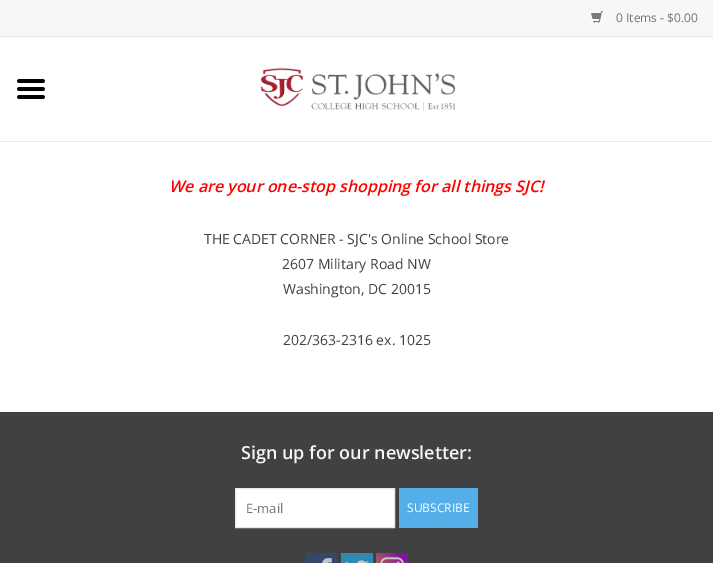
%!PS
<< /PageSize [713 563] >> setpagedevice
/rgb { 3 { 255 div 3 1 roll } repeat setrgbcolor } def
/font { [ exch dup neg 0 0 3 -1 roll 0 0 ] selectfont } def
/text { moveto show } def
/picture { 5 dict begin { /h /w /y /x /name } { exch def } forall
  gsave x y translate w h scale
  w h 8 [w 0 0 h 0 0] name (r) file false 3 colorimage grestore end } def
0 563 translate 1 -1 scale
4 setmiterlimit
255 255 255 rgb
0 0 713 563 rectfill
247 247 247 rgb
0 0 713 36 rectfill
229 229 229 rgb
0 36 713 1 rectfill
(img_01.rgb) 591 11 12 12 picture
234 234 234 rgb
0 141 713 1 rectfill
(img_02.rgb) 260 67 196 44 picture
(img_03.rgb) 17 79 28 20 picture
65 65 65 rgb
0 413 713 150 rectfill
59 59 59 rgb
0 412 713 1 rectfill
255 255 255 rgb
235.5 488.5 moveto 159 0 rlineto 0 39 rlineto -159 0 rlineto closepath gsave fill grestore
233 233 233 rgb
stroke
84 175 233 rgb
399 488 79 40 rectfill
(img_04.rgb) 305 553 32 10 picture
(img_05.rgb) 341 553 32 10 picture
(img_06.rgb) 376 553 32 10 picture
/OpenSans-Regular 12 font
117 117 117 rgb
(0 Items - $0.00) 616 22 text
/OpenSans-SemiBoldItalic 16 font
255 0 0 rgb
(We are your one-stop shopping for all things SJC!) 169 192 text
/OpenSans-Regular 14 font
65 65 65 rgb
(THE CADET CORNER - SJC's Online School Store) 204 244 text
(2607 Military Road NW) 282 269 text
(Washington, DC 20015) 283 294 text
(202/363-2316 ex. 1025) 283 345 text
/OpenSans-SemiBold 18 font
247 247 247 rgb
(Sign up for our newsletter:) 241 459 text
/OpenSans-Regular 13 font
117 117 117 rgb
(E-mail) 246 513 text
/OpenSans-Regular 12 font
255 255 255 rgb
(SUBSCRIBE) 407 512 text
showpage
